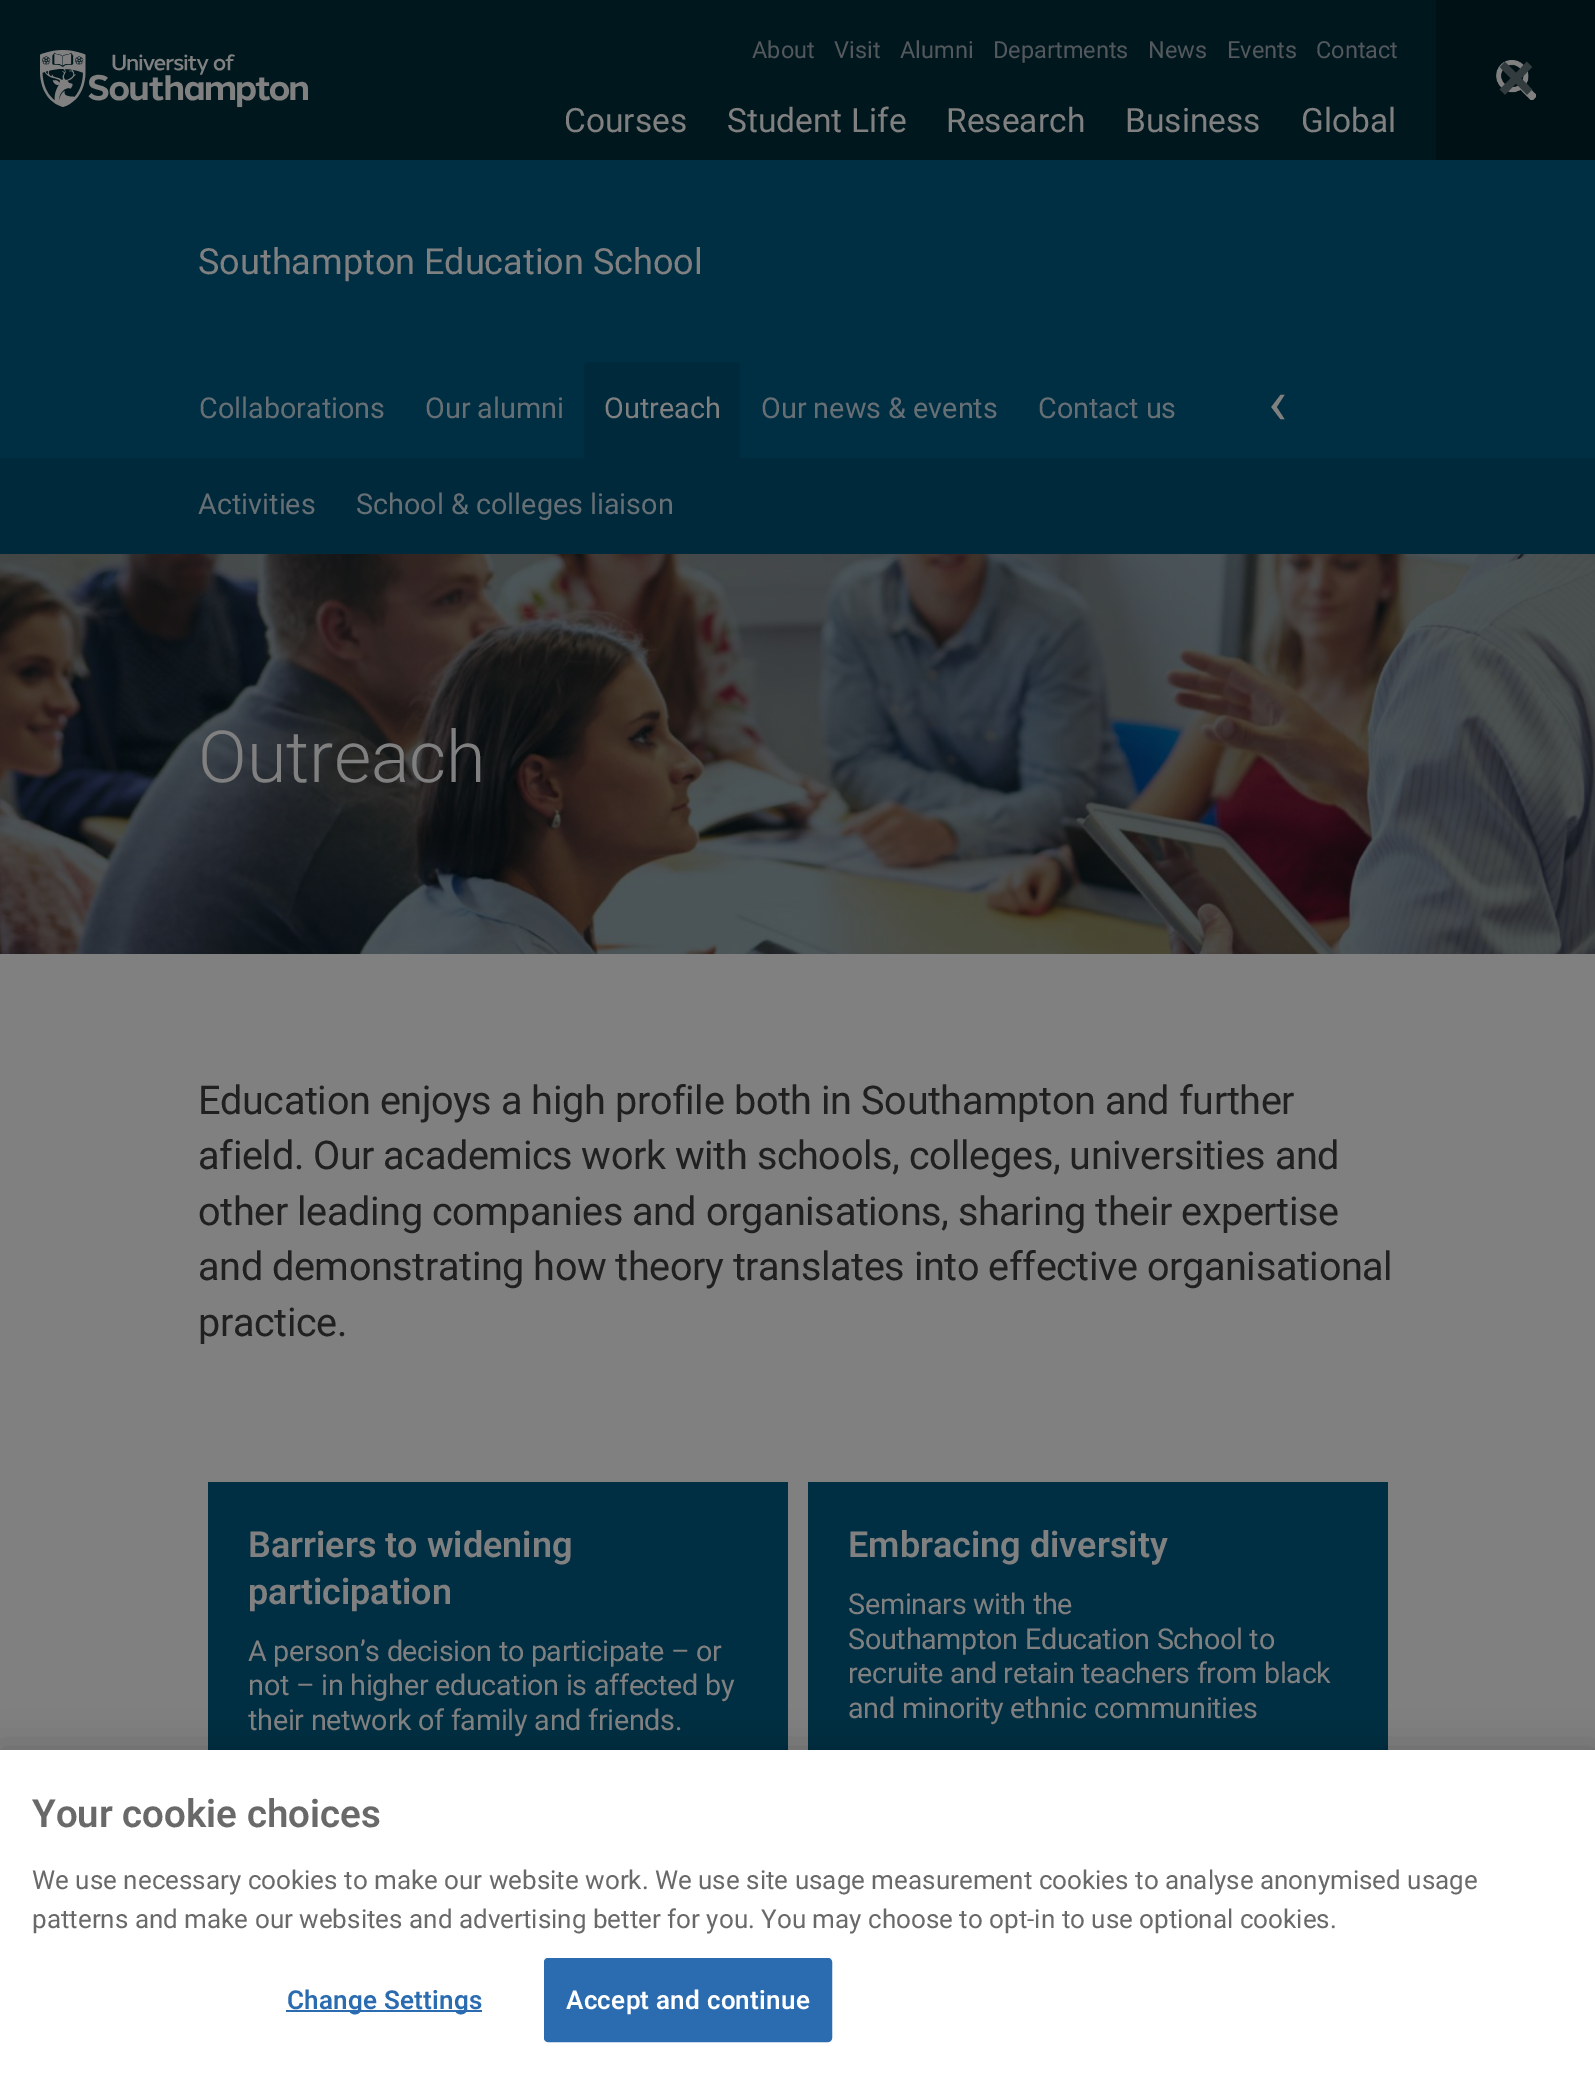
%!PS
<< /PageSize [1595 2078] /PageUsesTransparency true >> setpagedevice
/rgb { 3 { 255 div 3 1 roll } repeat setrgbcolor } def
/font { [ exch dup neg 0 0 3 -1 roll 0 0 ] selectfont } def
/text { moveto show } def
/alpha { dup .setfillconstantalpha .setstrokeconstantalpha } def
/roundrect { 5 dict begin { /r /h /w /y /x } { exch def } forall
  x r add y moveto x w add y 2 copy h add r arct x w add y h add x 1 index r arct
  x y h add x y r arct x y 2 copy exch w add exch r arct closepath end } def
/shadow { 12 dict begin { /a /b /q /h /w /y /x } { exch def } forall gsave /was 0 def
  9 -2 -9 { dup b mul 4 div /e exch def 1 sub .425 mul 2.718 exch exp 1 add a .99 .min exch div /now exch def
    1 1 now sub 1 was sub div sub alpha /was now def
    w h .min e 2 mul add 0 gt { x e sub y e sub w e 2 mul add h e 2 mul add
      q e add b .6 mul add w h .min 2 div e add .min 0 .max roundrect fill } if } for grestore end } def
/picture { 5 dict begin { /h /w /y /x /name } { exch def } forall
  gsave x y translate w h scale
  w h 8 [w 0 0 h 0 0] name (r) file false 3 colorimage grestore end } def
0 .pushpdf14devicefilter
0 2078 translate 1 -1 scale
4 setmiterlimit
0 23 30 rgb
0 0 1595 2078 rectfill
(img_01.rgb) 40 50 268 58 picture
0 17 22 rgb
1436 0 159 160 rectfill
(img_02.rgb) 1496 60 40 40 picture
0 46 67 rgb
0 160 1595 298 rectfill
0 41 59 rgb
588 362 moveto 148 0 rlineto 2 0 4 2 4 4 rcurveto 0 92 rlineto -156 0 rlineto 0 -92 rlineto 0 -2 2 -4 4 -4 rcurveto closepath fill
0 458 1595 96 rectfill
(img_03.rgb) 0 554 1595 400 picture
128 128 128 rgb
0 954 1595 796 rectfill
0 46 67 rgb
208 1482 580 268 rectfill
808 1482 580 268 rectfill
0 0 0 rgb
0 1750 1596 328 0 18 0.2 shadow
255 255 255 rgb
0 1750 1595 328 rectfill
43 108 177 rgb
286 2010 196 2 rectfill
545 1959 286 82 3 roundrect gsave fill grestore
2 setlinewidth
stroke
/Roboto-Regular 23.5 font
82 88 91 rgb
(About) 752 58 text
(Visit) 834 58 text
(Alumni) 900 58 text
(Departments) 993 58 text
(News) 1148 58 text
(Events) 1227 58 text
(Contact) 1316 58 text
/Roboto-Regular 33.5 font
128 128 128 rgb
(Courses) 564 132 text
(Student Life) 727 132 text
(Research) 946 132 text
(Business) 1125 132 text
(Global) 1301 132 text
/Roboto-SemiBold 72 font
50 60 63 rgb
(×) 1497 102 text
/Roboto-Regular 36 font
128 128 128 rgb
(Southampton Education School) 198 274 text
/Roboto-Regular 28.75 font
102 111 116 rgb
(Collaborations) 199 418 text
(Our alumni) 425 418 text
128 128 128 rgb
(Outreach) 604 418 text
102 111 116 rgb
(Our news & events) 761 418 text
(Contact us) 1038 418 text
/Roboto-Regular 63 font
128 128 128 rgb
(‹) 1268 424 text
/Roboto-Regular 28.75 font
102 111 116 rgb
(Activities) 198 514 text
(School & colleges liaison) 356 514 text
/Roboto-Light 72 font
128 128 128 rgb
(Outreach) 198 782 text
/Roboto-Regular 39.6 font
32 32 32 rgb
198 1114 moveto -0.4 0 (Education enjoys a high profile both in Southampton and further) ashow
198 1169 moveto -0.25 0 32 -0.4 0 (afield. Our academics work with schools, colleges, universities and) awidthshow
198 1225 moveto -0.25 0 32 -0.4 0 (other leading companies and organisations, sharing their expertise) awidthshow
198 1280 moveto -0.25 0 32 -0.4 0 (and demonstrating how theory translates into effective organisational) awidthshow
198 1336 moveto -0.4 0 (practice.) ashow
/Roboto-SemiBold 36 font
128 128 128 rgb
(Barriers to widening) 248 1557 text
(participation) 248 1604 text
/Roboto-Regular 28.75 font
248 1661 moveto -0.3 0 (A person’s decision to participate – or) ashow
248 1695 moveto -0.3 0 (not – in higher education is affected by) ashow
248 1730 moveto -0.3 0 (their network of family and friends.) ashow
/Roboto-SemiBold 36 font
(Embracing diversity) 848 1557 text
/Roboto-Regular 28.75 font
848 1614 moveto -0.3 0 (Seminars with the) ashow
848 1649 moveto -0.3 0 (Southampton Education School to) ashow
848 1683 moveto -0.3 0 (recruite and retain teachers from black) ashow
848 1718 moveto -0.3 0 (and minority ethnic communities) ashow
/Roboto-SemiBold 38.5 font
105 105 105 rgb
(Your cookie choices) 32 1827 text
/Roboto-Regular 26.02 font
(We use necessary cookies to make our website work. We use site usage measurement cookies to analyse anonymised usage) 32 1889 text
(patterns and make our websites and advertising better for you. You may choose to opt-in to use optional cookies.) 32 1928 text
/Roboto-SemiBold 26.02 font
43 108 177 rgb
287 2009 moveto 0.25 0 (Change Settings) ashow
255 255 255 rgb
566 2009 moveto 0.25 0 (Accept and continue) ashow
.poppdf14devicefilter showpage
